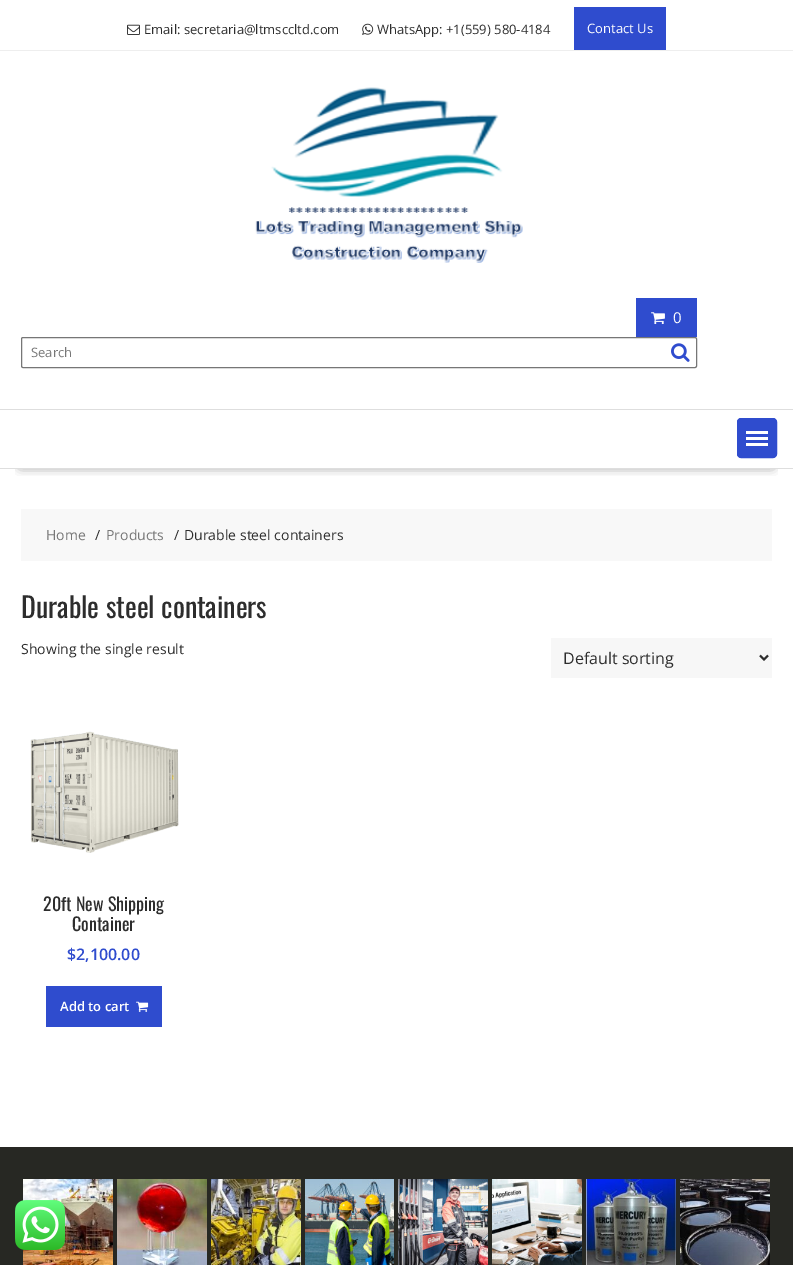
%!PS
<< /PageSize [793 1265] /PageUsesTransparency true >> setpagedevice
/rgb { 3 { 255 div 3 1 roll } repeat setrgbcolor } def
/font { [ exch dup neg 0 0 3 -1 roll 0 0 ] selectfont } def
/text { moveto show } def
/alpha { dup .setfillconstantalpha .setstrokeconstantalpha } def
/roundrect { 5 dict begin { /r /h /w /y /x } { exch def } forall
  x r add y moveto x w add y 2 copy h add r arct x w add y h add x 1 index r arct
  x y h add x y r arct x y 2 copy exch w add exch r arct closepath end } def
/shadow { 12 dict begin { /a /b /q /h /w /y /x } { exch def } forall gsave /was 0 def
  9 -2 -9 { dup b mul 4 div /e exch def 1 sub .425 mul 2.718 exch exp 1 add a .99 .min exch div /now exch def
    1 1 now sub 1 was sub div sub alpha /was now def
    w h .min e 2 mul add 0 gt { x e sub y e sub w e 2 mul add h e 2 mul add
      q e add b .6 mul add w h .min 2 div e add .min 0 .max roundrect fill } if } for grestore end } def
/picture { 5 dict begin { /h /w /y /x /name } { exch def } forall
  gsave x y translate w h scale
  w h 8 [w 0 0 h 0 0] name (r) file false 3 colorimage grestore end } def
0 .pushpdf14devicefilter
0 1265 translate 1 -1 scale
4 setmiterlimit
255 255 255 rgb
0 0 793 1265 rectfill
238 238 238 rgb
0 50 793 1 rectfill
(img_01.rgb) 127 24 13 11 picture
(img_02.rgb) 362 23 12 12 picture
47 76 206 rgb
574 7 92 43 rectfill
(img_03.rgb) 255 87 268 176 picture
636 298 61 39 rectfill
(img_04.rgb) 651 312 14 13 picture
118 118 118 rgb
21.5 337.5 675 30 1.5 roundrect stroke
(img_05.rgb) 671 343 19 19 picture
gsave
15 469 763 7 rectclip
0 0 0 rgb
21 447 751 18 0 5.5 0.75 shadow
grestore
222 222 222 rgb
0 409 793 1 rectfill
0 468 793 1 rectfill
47 76 206 rgb
737.5 418.5 39 39 3.5 roundrect gsave fill grestore
stroke
255 255 255 rgb
746 443 22 3 rectfill
746 437 22 3 rectfill
746 431 22 3 rectfill
248 248 248 rgb
21 509 751 52 rectfill
247 247 247 rgb
551 638 221 40 rectfill
45 45 45 rgb
2 setlinewidth
760 655.5 moveto 4 4 rlineto 4 -4 rlineto stroke
(img_06.rgb) 30 731 149 122 picture
47 76 206 rgb
46 986 116 41 rectfill
(img_07.rgb) 136 1001 13 11 picture
39 40 35 rgb
0 1147 793 118 rectfill
(img_08.rgb) 23 1179 90 86 picture
(img_09.rgb) 117 1179 90 86 picture
(img_10.rgb) 211 1179 90 86 picture
(img_11.rgb) 305 1179 89 86 picture
(img_12.rgb) 398 1179 90 86 picture
(img_13.rgb) 492 1179 90 86 picture
(img_14.rgb) 586 1179 90 86 picture
(img_15.rgb) 680 1179 90 86 picture
(img_16.rgb) 15 1200 50 50 picture
/OpenSans-Regular 13 font
45 45 45 rgb
(Email: secretaria@ltmsccltd.com) 144 34 text
(WhatsApp: +1\(559\) 580-4184) 377 34 text
255 255 255 rgb
(Contact Us) 587 33 text
/OpenSans-Regular 15 font
(0) 673 323 text
/OpenSans-Regular 13 font
119 119 119 rgb
(Search) 31 357 text
/OpenSans-Regular 14 font
(Home) 46 540 text
45 45 45 rgb
(/) 95 540 text
119 119 119 rgb
(Products) 106 540 text
45 45 45 rgb
(/) 174 540 text
(Durable steel containers) 184 540 text
/Oswald-Regular 28 font
(Durable steel containers) 21 618 text
/OpenSans-Regular 14 font
(Showing the single result) 21 654 text
/OpenSans-Regular 16 font
(Default sorting) 563 664 text
/Oswald-Regular 18 font
(20ft New Shipping) 43 911 text
(Container) 72 931 text
/OpenSans-SemiBold 16 font
47 76 206 rgb
($2,100.00) 67 960 text
/OpenSans-SemiBold 13 font
255 255 255 rgb
(Add to cart) 60 1011 text
.poppdf14devicefilter showpage
